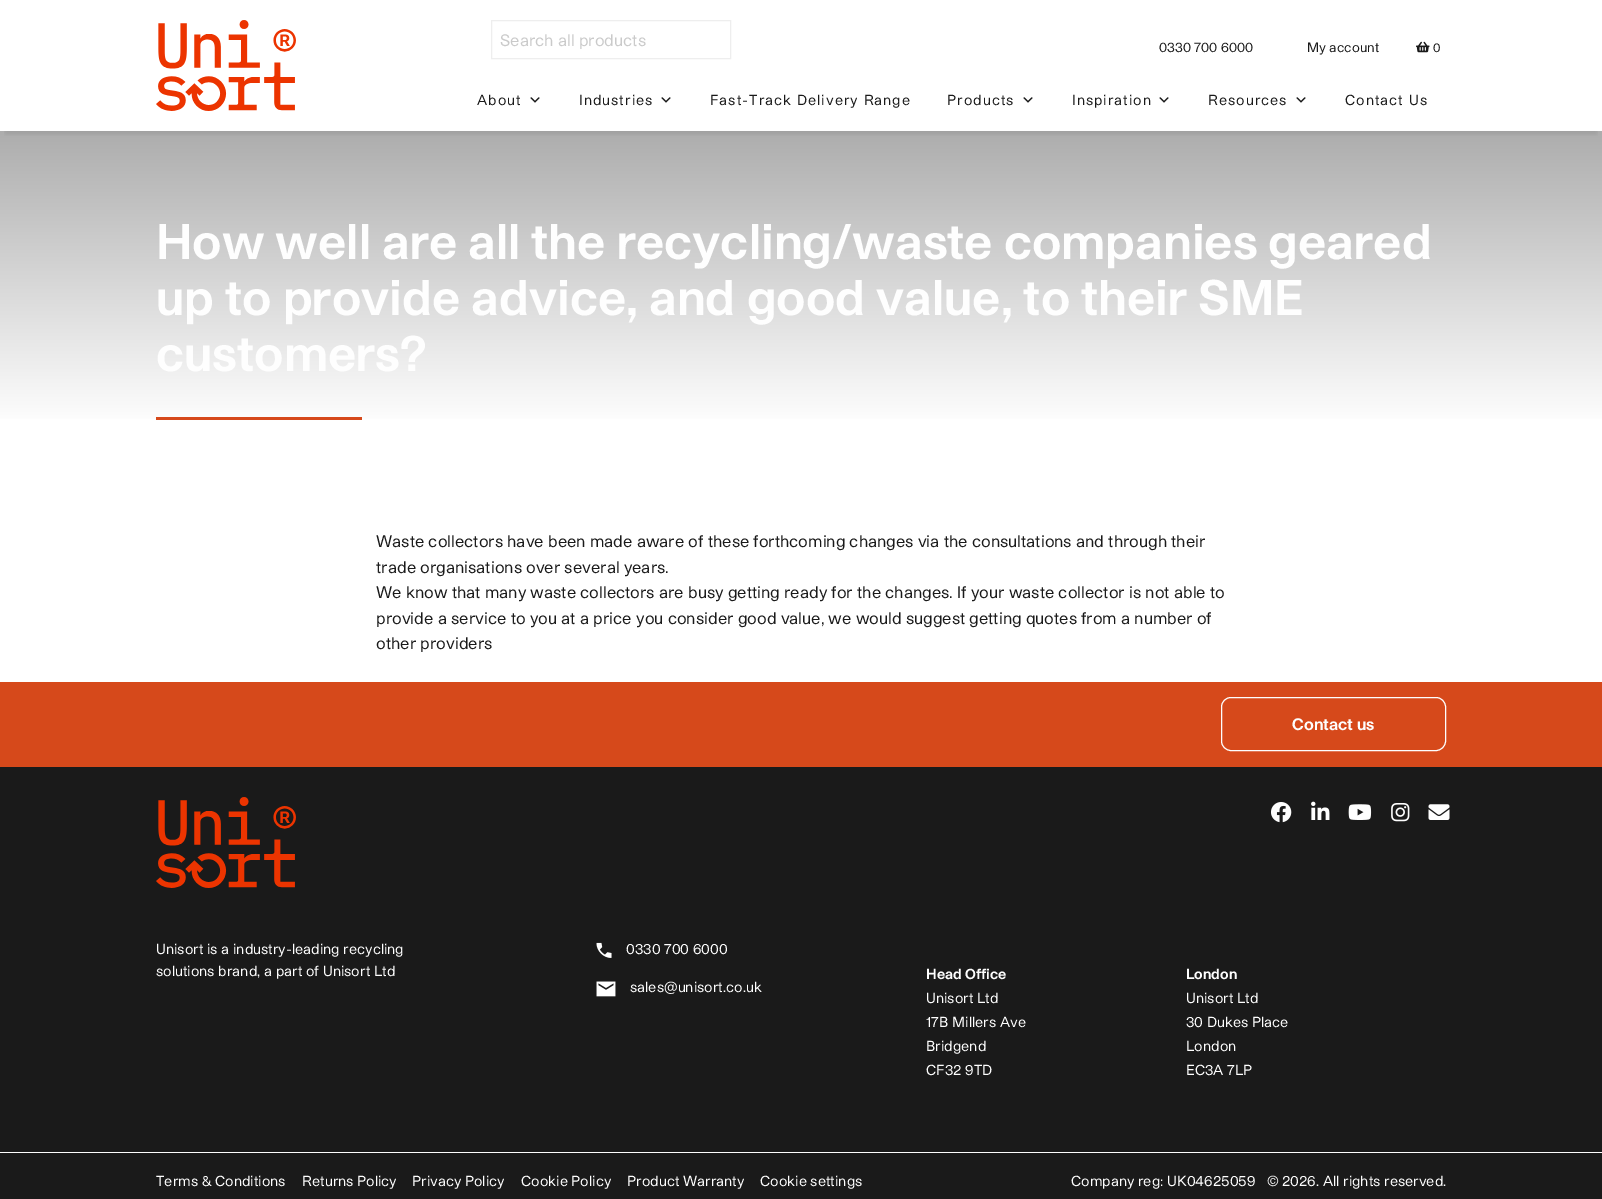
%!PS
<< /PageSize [1602 1199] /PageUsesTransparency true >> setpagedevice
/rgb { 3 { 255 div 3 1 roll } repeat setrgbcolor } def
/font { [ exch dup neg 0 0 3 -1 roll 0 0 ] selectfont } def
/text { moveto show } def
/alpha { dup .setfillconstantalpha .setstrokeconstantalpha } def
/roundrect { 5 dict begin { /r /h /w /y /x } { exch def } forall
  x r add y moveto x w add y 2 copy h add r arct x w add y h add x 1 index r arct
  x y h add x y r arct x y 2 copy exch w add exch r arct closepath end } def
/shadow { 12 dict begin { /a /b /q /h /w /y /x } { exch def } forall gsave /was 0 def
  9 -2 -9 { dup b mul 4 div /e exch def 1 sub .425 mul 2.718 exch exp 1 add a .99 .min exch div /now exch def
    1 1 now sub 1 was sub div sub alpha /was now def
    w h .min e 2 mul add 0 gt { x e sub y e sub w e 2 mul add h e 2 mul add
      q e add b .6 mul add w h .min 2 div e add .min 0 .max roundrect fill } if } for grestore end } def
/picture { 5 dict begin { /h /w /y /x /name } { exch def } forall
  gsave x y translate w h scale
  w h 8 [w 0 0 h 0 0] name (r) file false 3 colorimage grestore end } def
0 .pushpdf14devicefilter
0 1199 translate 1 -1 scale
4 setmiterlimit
255 255 255 rgb
0 0 1602 1199 rectfill
gsave 0 131 moveto 1602 0 rlineto 0 288 rlineto -1602 0 rlineto closepath clip newpath
<< /ShadingType 2 /ColorSpace /DeviceRGB /Coords [801 -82 801 518] /Extend [true true] /Function << /FunctionType 3 /Domain [0 1] /Functions [<< /FunctionType 2 /Domain [0 1] /C0 [0.451 0.451 0.451] /C1 [1 1 1] /N 1 >> << /FunctionType 2 /Domain [0 1] /C0 [1 1 1] /C1 [1 1 1] /N 1 >>] /Bounds [0.85] /Encode [0 1 0 1] >> >> shfill grestore
gsave
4 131 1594 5 rectclip
0 0 0 rgb
6 14 1590 119 0 3 0.1 shadow
grestore
(img_01.rgb) 156 20 140 91 picture
238 238 238 rgb
491.5 20.5 239 38 rectstroke
(img_02.rgb) 1416 41 14 12 picture
(img_03.rgb) 530 97 10 6 picture
(img_03.rgb) 661 97 10 6 picture
(img_03.rgb) 1023 97 10 6 picture
(img_03.rgb) 1159 97 10 6 picture
(img_03.rgb) 1296 97 10 6 picture
214 73 27 rgb
156 417 206 3 rectfill
0 682 1602 85 rectfill
254 254 254 rgb
1221.5 697.5 224 53 9.5 roundrect stroke
26 26 26 rgb
0 767 1602 432 rectfill
(img_04.rgb) 156 797 140 91 picture
(img_05.rgb) 1271 802 21 21 picture
(img_06.rgb) 1311 801 19 19 picture
(img_07.rgb) 1348 804 24 16 picture
(img_08.rgb) 1391 803 19 19 picture
(img_09.rgb) 1428 804 22 16 picture
(img_10.rgb) 596 942 16 16 picture
(img_11.rgb) 596 981 20 16 picture
254 254 254 rgb
0 1152 1602 1 rectfill
/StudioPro-Regular 16 font
202 202 202 rgb
(Search all products) 500 46 text
/StudioPro-Regular 13 font
26 26 26 rgb
(0330 700 6000) 1159 52 text
(My account) 1307 52 text
/StudioPro-Regular 12 font
(0) 1433 52 text
/StudioPro-Regular 14 font
477 105 moveto 1 0 (About) ashow
579 105 moveto 1 0 (Industries) ashow
710 105 moveto 1 0 (Fast-Track Delivery Range) ashow
947 105 moveto 1 0 (Products) ashow
1072 105 moveto 1 0 (Inspiration) ashow
1208 105 moveto 1 0 (Resources) ashow
1345 105 moveto 1 0 (Contact Us) ashow
/StudioPro-Bold 48 font
254 254 254 rgb
(How well are all the recycling/waste companies geared) 156 259 text
(up to provide advice, and good value, to their SME) 156 315 text
(customers?) 156 371 text
/StudioPro-Regular 16 font
26 26 26 rgb
(Waste collectors have been made aware of these forthcoming changes via the consultations and through their) 376 547 text
(trade organisations over several years.) 376 573 text
(We know that many waste collectors are busy getting ready for the changes. If your waste collector is not able to) 376 598 text
(provide a service to you at a price you consider good value, we would suggest getting quotes from a number of) 376 624 text
(other providers) 376 649 text
/StudioPro-Bold 16 font
254 254 254 rgb
(Contact us) 1292 730 text
/StudioPro-Regular 14 font
(Unisort is a industry-leading recycling) 156 954 text
(solutions brand, a part of Unisort Ltd) 156 976 text
(0330 700 6000) 626 954 text
(sales@unisort.co.uk) 630 992 text
/StudioPro-Bold 14 font
(Head Office) 926 979 text
/StudioPro-Regular 14 font
(Unisort Ltd) 926 1003 text
(17B Millers Ave) 926 1027 text
(Bridgend) 926 1051 text
(CF32 9TD) 926 1075 text
/StudioPro-Bold 14 font
(London) 1186 979 text
/StudioPro-Regular 14 font
(Unisort Ltd) 1186 1003 text
(30 Dukes Place) 1186 1027 text
(London) 1186 1051 text
(EC3A 7LP) 1186 1075 text
(Terms & Conditions) 156 1186 text
(Returns Policy) 302 1186 text
(Privacy Policy) 412 1186 text
(Cookie Policy) 521 1186 text
(Product Warranty) 627 1186 text
(Cookie settings) 760 1186 text
(Company reg: UK04625059   © 2026. All rights reserved.) 1071 1186 text
.poppdf14devicefilter showpage
